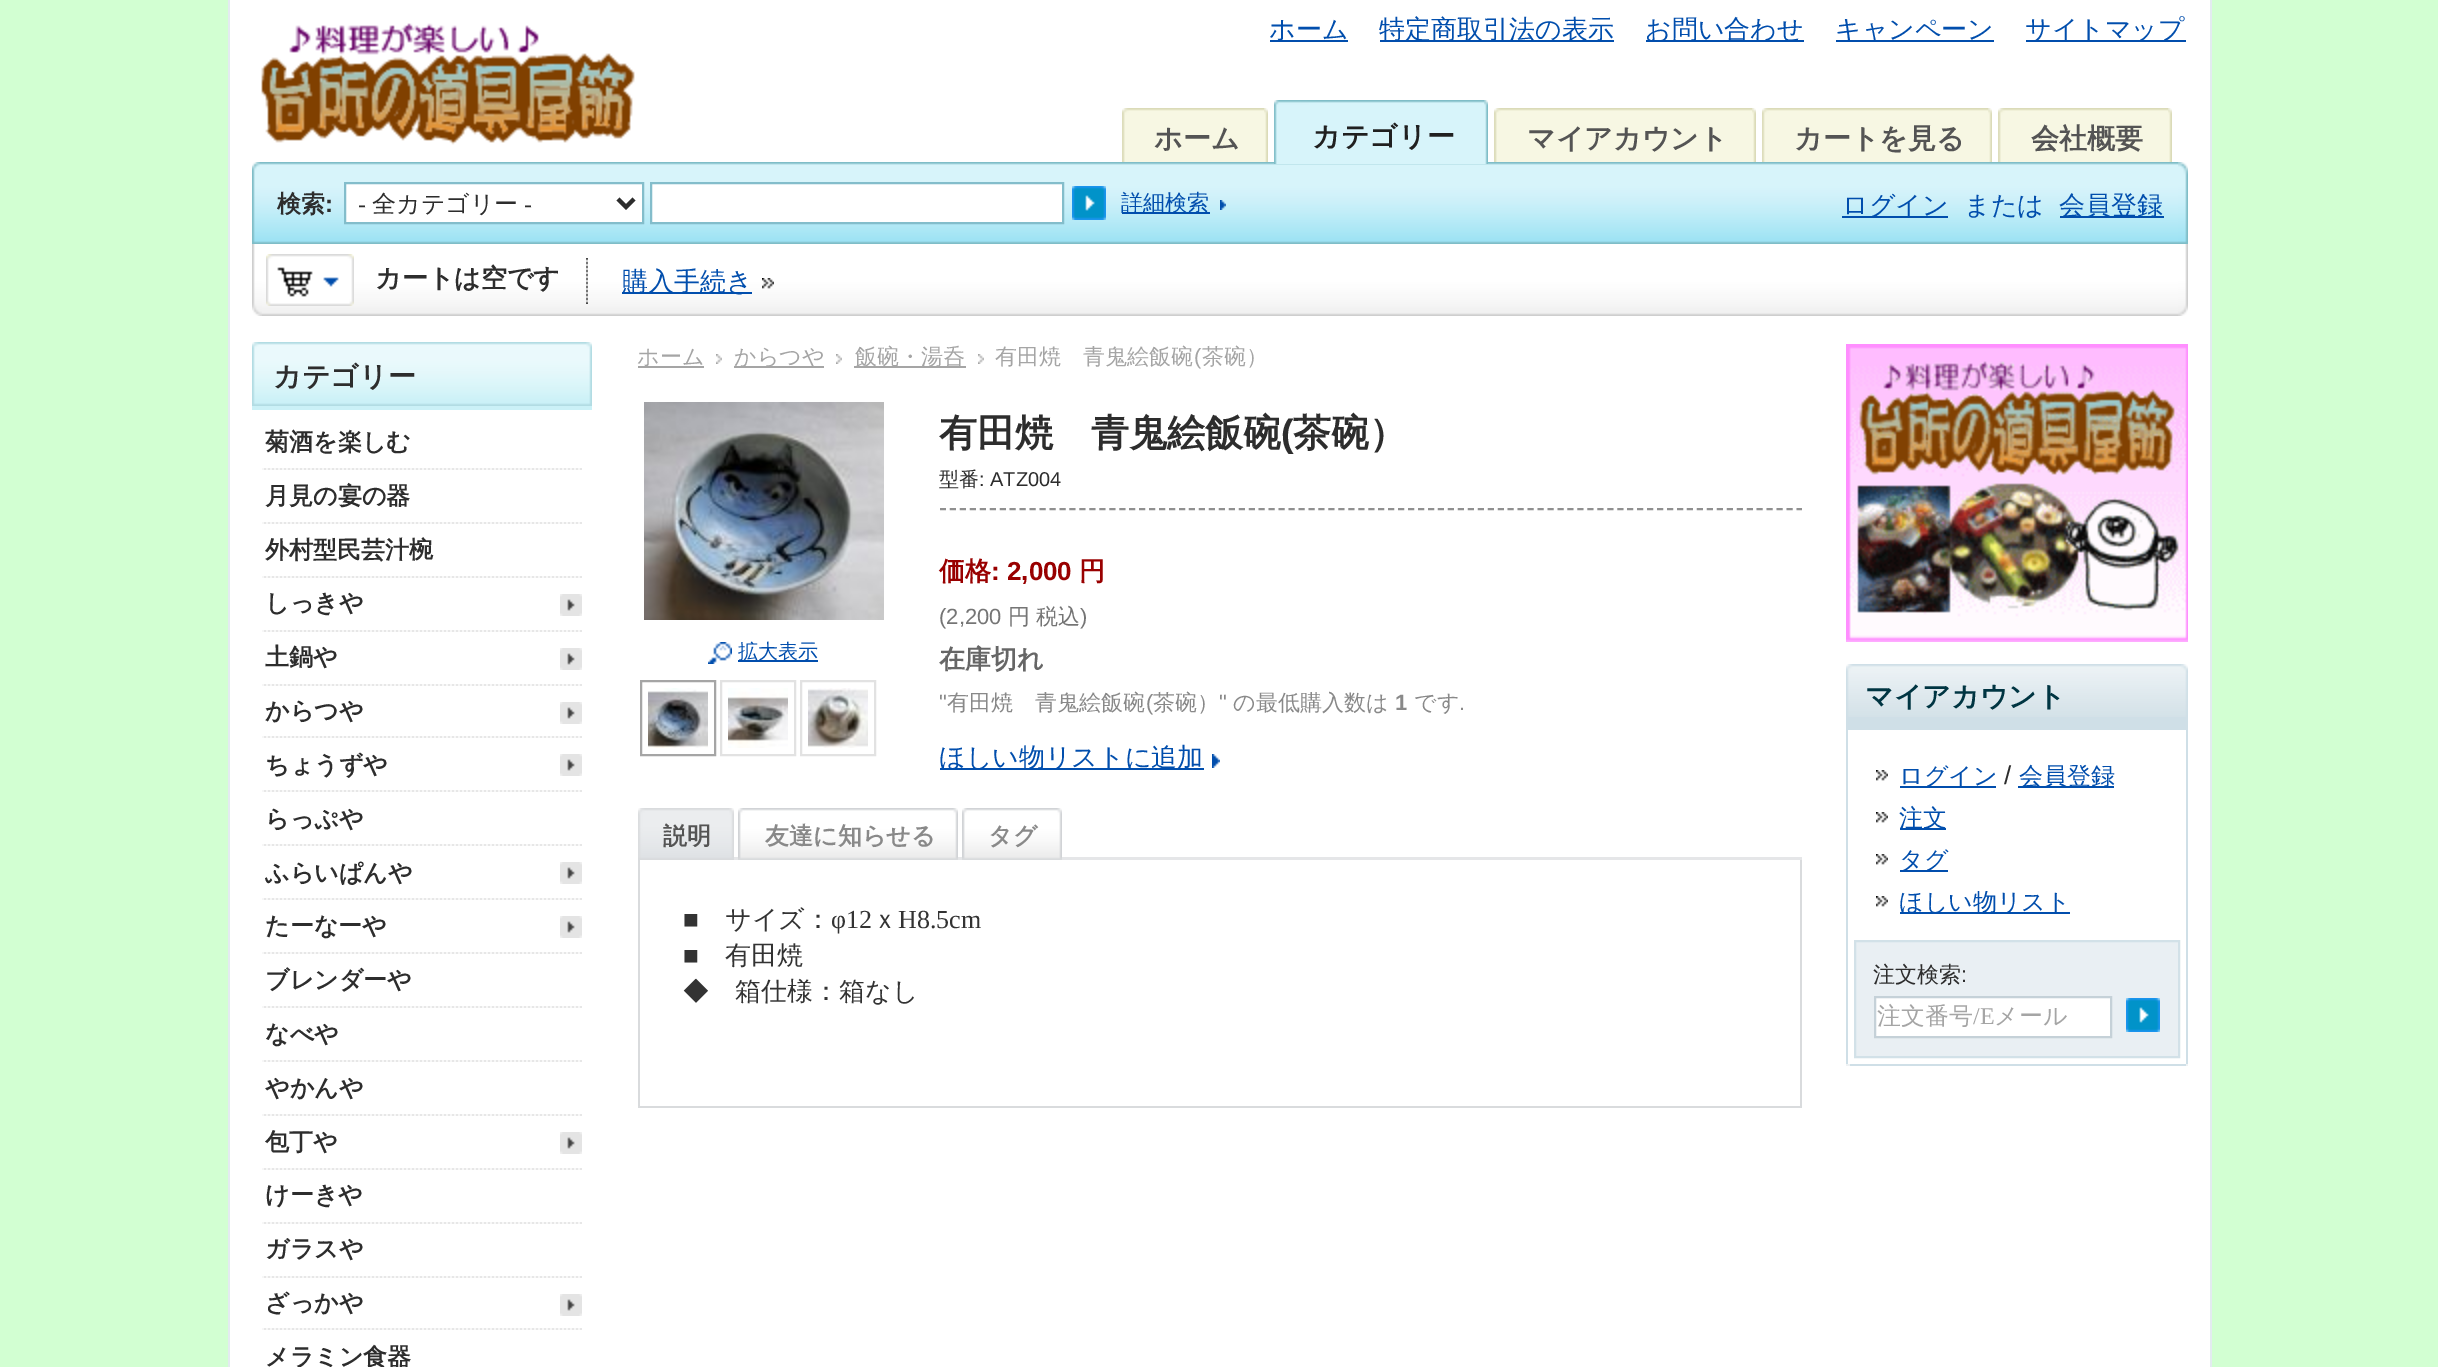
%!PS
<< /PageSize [2438 1367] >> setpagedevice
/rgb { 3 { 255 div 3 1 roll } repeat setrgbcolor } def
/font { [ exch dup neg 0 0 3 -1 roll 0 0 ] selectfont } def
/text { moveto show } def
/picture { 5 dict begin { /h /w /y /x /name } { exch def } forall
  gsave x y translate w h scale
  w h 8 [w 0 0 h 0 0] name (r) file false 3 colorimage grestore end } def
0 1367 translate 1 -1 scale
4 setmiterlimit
210 255 210 rgb
0 0 2438 1367 rectfill
255 255 255 rgb
230 0 1980 1367 rectfill
227 235 240 rgb
2210 0 2 1367 rectfill
228 0 2 1367 rectfill
(img_01.rgb) 261 23 374 122 picture
1 78 173 rgb
1270 40 78 2 rectfill
1380 40 234 2 rectfill
1646 40 158 2 rectfill
1836 40 158 2 rectfill
2026 40 160 2 rectfill
(img_02.rgb) 1264 108 4 54 picture
(img_03.rgb) 1122 108 142 54 picture
(img_10.rgb) 252 162 1936 82 picture
(img_04.rgb) 1484 100 4 64 picture
(img_05.rgb) 1274 100 210 64 picture
(img_02.rgb) 1752 108 4 54 picture
(img_06.rgb) 1494 108 258 54 picture
(img_07.rgb) 1988 108 4 54 picture
(img_08.rgb) 1762 108 226 54 picture
(img_02.rgb) 2168 108 4 54 picture
(img_09.rgb) 1998 108 170 54 picture
(img_11.rgb) 252 162 8 81 picture
255 255 255 rgb
345 183 moveto 298 0 rlineto 0 40 rlineto -298 0 rlineto closepath gsave fill grestore
131 189 203 rgb
2 setlinewidth
stroke
45 45 45 rgb
4 setlinewidth
618 199 moveto 8 8 rlineto 8 -8 rlineto stroke
255 255 255 rgb
651 183 moveto 412 0 rlineto 0 40 rlineto -412 0 rlineto closepath gsave fill grestore
131 189 203 rgb
2 setlinewidth
stroke
(img_12.rgb) 1072 186 34 34 picture
1 78 173 rgb
1122 212 88 2 rectfill
(img_13.rgb) 1220 200 6 10 picture
1842 216 106 2 rectfill
2060 216 104 2 rectfill
(img_14.rgb) 2178 162 10 81 picture
(img_15.rgb) 262 244 1916 72 picture
(img_16.rgb) 252 244 10 72 picture
(img_17.rgb) 586 258 2 46 picture
(img_18.rgb) 266 254 88 52 picture
622 292 130 2 rectfill
(img_19.rgb) 762 278 12 11 picture
(img_20.rgb) 2178 244 10 72 picture
203 241 247 rgb
252 406 340 4 rectfill
(img_21.rgb) 252 342 340 64 picture
(img_22.rgb) 586 342 6 63 picture
(img_23.rgb) 262 468 320 2 picture
(img_23.rgb) 262 522 320 2 picture
(img_23.rgb) 262 576 320 2 picture
(img_24.rgb) 560 594 22 22 picture
(img_23.rgb) 262 630 320 2 picture
(img_24.rgb) 560 648 22 22 picture
(img_23.rgb) 262 684 320 2 picture
(img_24.rgb) 560 702 22 22 picture
(img_23.rgb) 262 736 320 2 picture
(img_24.rgb) 560 754 22 22 picture
(img_23.rgb) 262 790 320 2 picture
(img_23.rgb) 262 844 320 2 picture
(img_24.rgb) 560 862 22 22 picture
(img_23.rgb) 262 898 320 2 picture
(img_24.rgb) 560 916 22 22 picture
(img_23.rgb) 262 952 320 2 picture
(img_23.rgb) 262 1006 320 2 picture
(img_23.rgb) 262 1060 320 2 picture
(img_23.rgb) 262 1114 320 2 picture
(img_24.rgb) 560 1132 22 22 picture
(img_23.rgb) 262 1168 320 2 picture
(img_23.rgb) 262 1222 320 2 picture
(img_23.rgb) 262 1276 320 2 picture
(img_24.rgb) 560 1294 22 22 picture
(img_23.rgb) 262 1328 320 2 picture
165 165 165 rgb
638 366 66 2 rectfill
(img_25.rgb) 716 354 6 10 picture
734 366 90 2 rectfill
(img_25.rgb) 836 354 6 10 picture
854 366 112 2 rectfill
(img_25.rgb) 978 354 6 10 picture
(img_26.rgb) 644 402 240 218 picture
(img_27.rgb) 708 642 24 22 picture
1 78 173 rgb
738 660 80 2 rectfill
165 165 165 rgb
641 681 74 74 rectstroke
(img_28.rgb) 648 688 60 60 picture
226 226 226 rgb
721 681 74 74 rectstroke
(img_29.rgb) 728 688 60 60 picture
801 681 74 74 rectstroke
(img_30.rgb) 808 688 60 60 picture
144 144 144 rgb
[6 3.96] 0 setdash
940 509 moveto 862 0 rlineto stroke
1 78 173 rgb
940 768 264 2 rectfill
(img_31.rgb) 1212 754 8 14 picture
229 230 232 rgb
734 857 1068 3 rectfill
(img_32.rgb) 638 808 96 52 picture
(img_33.rgb) 729 808 5 50 picture
(img_34.rgb) 738 808 220 52 picture
(img_35.rgb) 953 808 5 51 picture
(img_36.rgb) 962 808 100 52 picture
(img_35.rgb) 1057 808 5 51 picture
217 219 221 rgb
1800 860 2 248 rectfill
638 1106 1164 2 rectfill
638 860 2 248 rectfill
(img_37.rgb) 1846 344 342 298 picture
207 223 231 rgb
1846 717 342 13 rectfill
(img_38.rgb) 1846 664 335 53 picture
(img_39.rgb) 2181 664 7 53 picture
2186 730 2 334 rectfill
1846 730 2 334 rectfill
(img_40.rgb) 1876 770 12 11 picture
1 78 173 rgb
1900 786 96 2 rectfill
2018 786 96 2 rectfill
(img_40.rgb) 1876 812 12 11 picture
1900 828 46 2 rectfill
(img_40.rgb) 1876 854 12 11 picture
1900 870 48 2 rectfill
(img_40.rgb) 1876 896 12 11 picture
1900 912 170 2 rectfill
233 239 243 rgb
1855 941 moveto 324 0 rlineto 0 116 rlineto -324 0 rlineto closepath gsave fill grestore
210 225 232 rgb
[] 0 setdash
stroke
255 255 255 rgb
1875 997 moveto 236 0 rlineto 0 40 rlineto -236 0 rlineto closepath gsave fill grestore
197 209 216 rgb
stroke
(img_12.rgb) 2126 998 34 34 picture
207 223 231 rgb
1846 1064 342 2 rectfill
238 242 244 rgb
2186 1064 2 2 rectfill
1846 1064 4 2 rectfill
/WenQuanYiZenHei-Medium 26 font
1 78 173 rgb
(ホーム) 1269 38 text
(特定商取引法の表示) 1379 38 text
(お問い合わせ) 1645 38 text
(キャンペーン) 1835 38 text
(サイトマップ) 2025 38 text
/WenQuanYiZenHei-Bold 28 font
84 84 84 rgb
(ホーム) 1154 148 text
32 32 32 rgb
(カテゴリー) 1312 146 text
84 84 84 rgb
(マイアカウント) 1527 148 text
(カートを見る) 1794 148 text
(会社概要) 2031 148 text
/WenQuanYiZenHei-Bold 24 font
45 45 45 rgb
(検索) 277 212 text
/LiberationSans-Bold 24 font
(:) 325 212 text
/LiberationSerif-Regular 24 font
(-) 358 212 text
/WenQuanYiZenHei-Medium 24 font
(全カテゴリー) 372 212 text
/LiberationSerif-Regular 24 font
(-) 524 212 text
/WenQuanYiZenHei-Medium 22 font
1 78 173 rgb
(詳細検索) 1121 210 text
/WenQuanYiZenHei-Medium 26 font
(ログイン) 1842 214 text
(または) 1964 214 text
(会員登録) 2059 214 text
/WenQuanYiZenHei-Bold 26 font
45 45 45 rgb
(カートは空です) 375 287 text
/WenQuanYiZenHei-Medium 26 font
1 78 173 rgb
(購入手続き) 622 290 text
/WenQuanYiZenHei-Bold 28 font
45 45 45 rgb
(カテゴリー) 273 386 text
/WenQuanYiZenHei-Bold 24 font
(菊酒を楽しむ) 265 450 text
(月見の宴の器) 265 504 text
(外村型民芸汁椀) 265 558 text
(しっきや) 265 611 text
(土鍋や) 265 665 text
(からつや) 265 719 text
(ちょうずや) 265 773 text
(らっぷや) 265 827 text
(ふらいぱんや) 265 881 text
(たーなーや) 265 934 text
(ブレンダーや) 265 988 text
(なべや) 265 1042 text
(やかんや) 265 1096 text
(包丁や) 265 1150 text
(けーきや) 265 1203 text
(ガラスや) 265 1257 text
(ざっかや) 265 1311 text
(メラミン食器) 265 1365 text
/WenQuanYiZenHei-Medium 22 font
165 165 165 rgb
(ホーム) 637 364 text
(からつや) 734 364 text
(飯碗・湯呑) 855 364 text
(有田焼　青鬼絵飯碗) 995 364 text
/LiberationSans-Regular 22 font
(\() 1194 364 text
/WenQuanYiZenHei-Medium 22 font
(茶碗）) 1202 364 text
/WenQuanYiZenHei-Medium 20 font
1 78 173 rgb
(拡大表示) 738 658 text
/WenQuanYiZenHei-Bold 38 font
45 45 45 rgb
(有田焼　青鬼絵飯碗) 939 446 text
/LiberationSans-Bold 38 font
(\() 1281 446 text
/WenQuanYiZenHei-Bold 38 font
(茶碗）) 1293 446 text
/WenQuanYiZenHei-Medium 20 font
(型番) 939 486 text
/LiberationSans-Regular 20 font
(: ATZ004) 979 486 text
/WenQuanYiZenHei-Bold 26 font
153 0 0 rgb
(価格) 939 580 text
/LiberationSans-Bold 26 font
(: 2,000) 991 580 text
/WenQuanYiZenHei-Bold 26 font
(円) 1079 580 text
/LiberationSans-Regular 22 font
117 117 117 rgb
(\(2,200) 939 624 text
/WenQuanYiZenHei-Medium 22 font
(円) 1008 624 text
(税込) 1036 624 text
/LiberationSans-Regular 22 font
(\)) 1080 624 text
/WenQuanYiZenHei-Bold 26 font
102 102 102 rgb
(在庫切れ) 939 668 text
/LiberationSans-Regular 22 font
137 137 137 rgb
(") 939 710 text
/WenQuanYiZenHei-Medium 22 font
(有田焼　青鬼絵飯碗) 947 710 text
/LiberationSans-Regular 22 font
(\() 1146 710 text
/WenQuanYiZenHei-Medium 22 font
(茶碗）) 1153 710 text
/LiberationSans-Regular 22 font
(") 1219 710 text
/WenQuanYiZenHei-Medium 22 font
(の最低購入数は) 1233 710 text
/LiberationSans-Bold 22 font
(1) 1395 710 text
/WenQuanYiZenHei-Medium 22 font
(です) 1414 710 text
/LiberationSans-Regular 22 font
(.) 1459 710 text
/WenQuanYiZenHei-Medium 26 font
1 78 173 rgb
(ほしい物リストに追加) 939 766 text
/WenQuanYiZenHei-Bold 24 font
84 84 84 rgb
(説明) 663 844 text
137 137 137 rgb
(友達に知らせる) 765 844 text
(タグ) 988 844 text
/LiberationSerif-Regular 26 font
51 51 51 rgb
(■) 683 928 text
/WenQuanYiZenHei-Medium 26 font
(サイズ：) 725 928 text
/LiberationSerif-Regular 26 font
(φ12) 831 928 text
/WenQuanYiZenHei-Medium 26 font
(ｘ) 872 928 text
/LiberationSerif-Regular 26 font
(H8.5cm) 898 928 text
(■) 683 964 text
/WenQuanYiZenHei-Medium 26 font
(有田焼) 725 964 text
(◆　箱仕様：箱なし) 683 1000 text
/WenQuanYiZenHei-Bold 28 font
0 53 66 rgb
(マイアカウント) 1865 706 text
/WenQuanYiZenHei-Medium 24 font
1 78 173 rgb
(ログイン) 1899 784 text
/LiberationSans-Regular 26 font
45 45 45 rgb
(/) 2004 784 text
/WenQuanYiZenHei-Medium 24 font
1 78 173 rgb
(会員登録) 2019 784 text
(注文) 1899 826 text
(タグ) 1899 868 text
(ほしい物リスト) 1899 910 text
/WenQuanYiZenHei-Medium 22 font
45 45 45 rgb
(注文検索) 1873 982 text
/LiberationSans-Regular 22 font
(:) 1961 982 text
/WenQuanYiZenHei-Medium 24 font
165 165 165 rgb
(注文番号) 1877 1024 text
/LiberationSerif-Regular 24 font
(/E) 1973 1024 text
/WenQuanYiZenHei-Medium 24 font
(メール) 1994 1024 text
showpage
